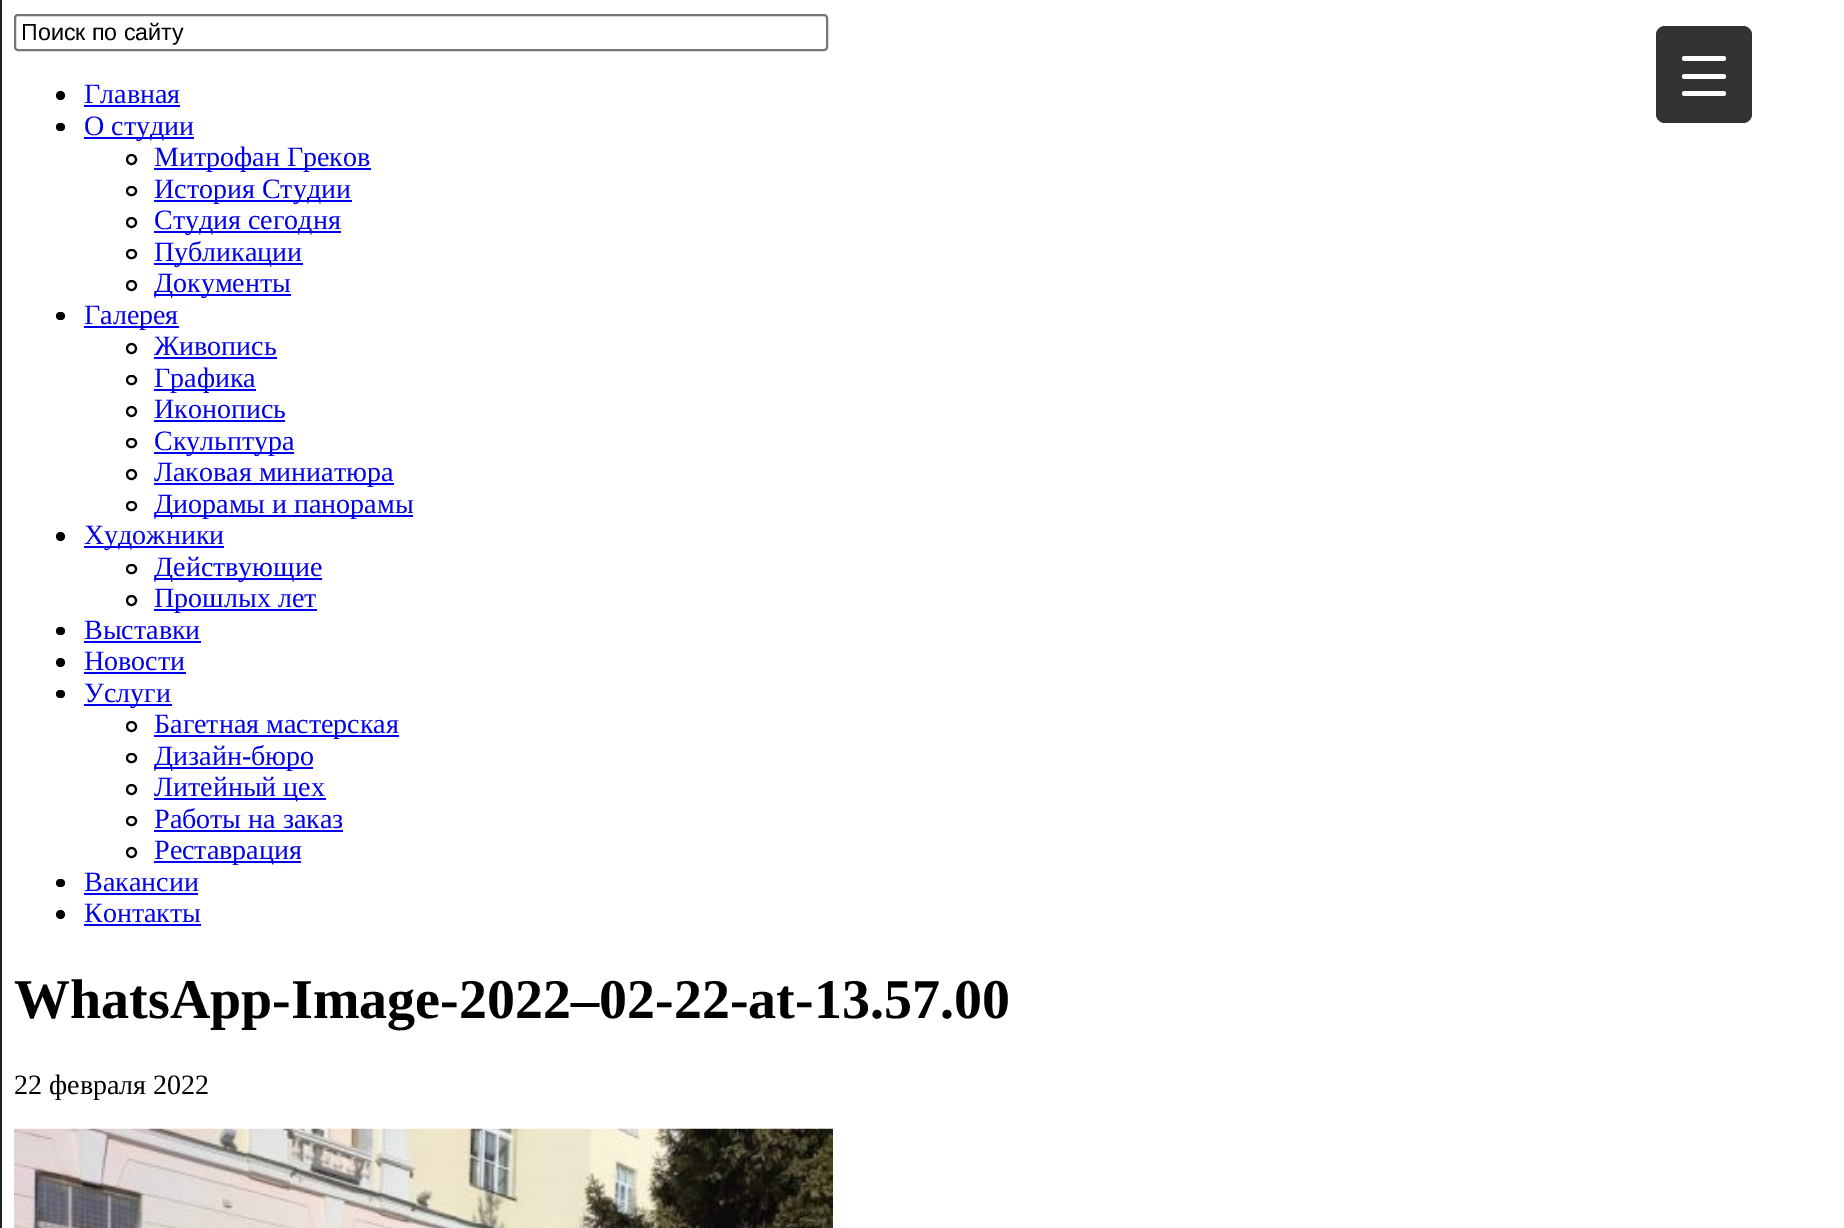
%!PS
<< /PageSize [1844 1228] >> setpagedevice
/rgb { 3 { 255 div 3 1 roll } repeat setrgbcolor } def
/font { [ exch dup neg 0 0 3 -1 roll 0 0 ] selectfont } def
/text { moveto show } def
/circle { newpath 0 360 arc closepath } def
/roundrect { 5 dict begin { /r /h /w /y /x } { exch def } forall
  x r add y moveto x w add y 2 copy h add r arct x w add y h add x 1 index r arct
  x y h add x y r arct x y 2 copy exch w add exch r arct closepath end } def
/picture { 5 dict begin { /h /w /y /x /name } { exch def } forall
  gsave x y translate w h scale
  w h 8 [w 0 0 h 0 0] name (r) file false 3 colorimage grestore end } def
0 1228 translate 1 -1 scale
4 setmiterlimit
255 255 255 rgb
0 0 1844 1228 rectfill
33 33 33 rgb
0 0 2 1228 rectfill
118 118 118 rgb
2 setlinewidth
15 15 812 35 3 roundrect stroke
0 0 0 rgb
60.5 95.5 4.5 circle fill
0 0 238 rgb
84 105 96 2 rectfill
0 0 0 rgb
56 123 9 8 4 roundrect fill
0 0 238 rgb
84 137 110 2 rectfill
0 0 0 rgb
131.5 159.5 4.5 circle stroke
0 0 238 rgb
154 168 217 2 rectfill
0 0 0 rgb
127 187 9 8 4 roundrect stroke
0 0 238 rgb
154 200 198 2 rectfill
0 0 0 rgb
131.5 222.5 4.5 circle stroke
0 0 238 rgb
154 231 187 2 rectfill
0 0 0 rgb
127 250 9 8 4 roundrect stroke
0 0 238 rgb
154 263 149 2 rectfill
0 0 0 rgb
131.5 285.5 4.5 circle stroke
0 0 238 rgb
154 294 137 2 rectfill
0 0 0 rgb
56 312 9 8 4 roundrect fill
0 0 238 rgb
84 326 95 2 rectfill
0 0 0 rgb
131.5 348.5 4.5 circle stroke
0 0 238 rgb
154 357 123 2 rectfill
0 0 0 rgb
127 376 9 8 4 roundrect stroke
0 0 238 rgb
154 389 102 2 rectfill
0 0 0 rgb
131.5 411.5 4.5 circle stroke
0 0 238 rgb
154 420 131 2 rectfill
0 0 0 rgb
127 439 9 8 4 roundrect stroke
0 0 238 rgb
154 452 140 2 rectfill
0 0 0 rgb
131.5 474.5 4.5 circle stroke
0 0 238 rgb
154 483 240 2 rectfill
0 0 0 rgb
127 502 9 8 4 roundrect stroke
0 0 238 rgb
154 515 259 2 rectfill
0 0 0 rgb
60.5 536.5 4.5 circle fill
0 0 238 rgb
84 546 140 2 rectfill
0 0 0 rgb
127 565 9 8 4 roundrect stroke
0 0 238 rgb
154 578 168 2 rectfill
0 0 0 rgb
131.5 600.5 4.5 circle stroke
0 0 238 rgb
154 609 163 2 rectfill
0 0 0 rgb
56 627 9 8 4 roundrect fill
0 0 238 rgb
84 641 117 2 rectfill
0 0 0 rgb
60.5 662.5 4.5 circle fill
0 0 238 rgb
84 672 102 2 rectfill
0 0 0 rgb
56 690 9 8 4 roundrect fill
0 0 238 rgb
84 704 88 2 rectfill
0 0 0 rgb
131.5 726.5 4.5 circle stroke
0 0 238 rgb
154 735 245 2 rectfill
0 0 0 rgb
127 754 9 8 4 roundrect stroke
0 0 238 rgb
154 767 159 2 rectfill
0 0 0 rgb
131.5 789.5 4.5 circle stroke
0 0 238 rgb
154 798 172 2 rectfill
0 0 0 rgb
127 817 9 8 4 roundrect stroke
0 0 238 rgb
154 830 189 2 rectfill
0 0 0 rgb
131.5 852.5 4.5 circle stroke
0 0 238 rgb
154 861 147 2 rectfill
0 0 0 rgb
56 879 9 8 4 roundrect fill
0 0 238 rgb
84 893 114 2 rectfill
0 0 0 rgb
60.5 914.5 4.5 circle fill
0 0 238 rgb
84 924 117 2 rectfill
(img_01.rgb) 14 1128 819 100 picture
50 50 50 rgb
1656 26 96 97 9 roundrect fill
255 255 255 rgb
1682 74 44 5 2.5 roundrect fill
1682 56 44 5 2.5 roundrect fill
1682 91 44 5 2.5 roundrect fill
/LiberationSans-Regular 23.25 font
0 0 0 rgb
(Поиск по сайту) 21 40 text
/LiberationSerif-Regular 28 font
0 0 238 rgb
(Главная) 84 103 text
(О студии) 84 135 text
(Митрофан Греков) 154 166 text
(История Студии) 154 198 text
(Студия сегодня) 154 229 text
(Публикации) 154 261 text
(Документы) 154 292 text
(Галерея) 84 324 text
(Живопись) 154 355 text
(Графика) 154 387 text
(Иконопись) 154 418 text
(Скульптура) 154 450 text
(Лаковая миниатюра) 154 481 text
(Диорамы и панорамы) 154 513 text
(Художники) 84 544 text
(Действующие) 154 576 text
(Прошлых лет) 154 607 text
(Выставки) 84 639 text
(Новости) 84 670 text
(Услуги) 84 702 text
(Багетная мастерская) 154 733 text
(Дизайн-бюро) 154 765 text
(Литейный цех) 154 796 text
(Работы на заказ) 154 828 text
(Реставрация) 154 859 text
(Вакансии) 84 891 text
(Контакты) 84 922 text
/LiberationSerif-Bold 56 font
0 0 0 rgb
(WhatsApp-Image-2022–02-22-at-13.57.00) 14 1018 text
/LiberationSerif-Regular 28 font
(22 февраля 2022) 14 1094 text
showpage
